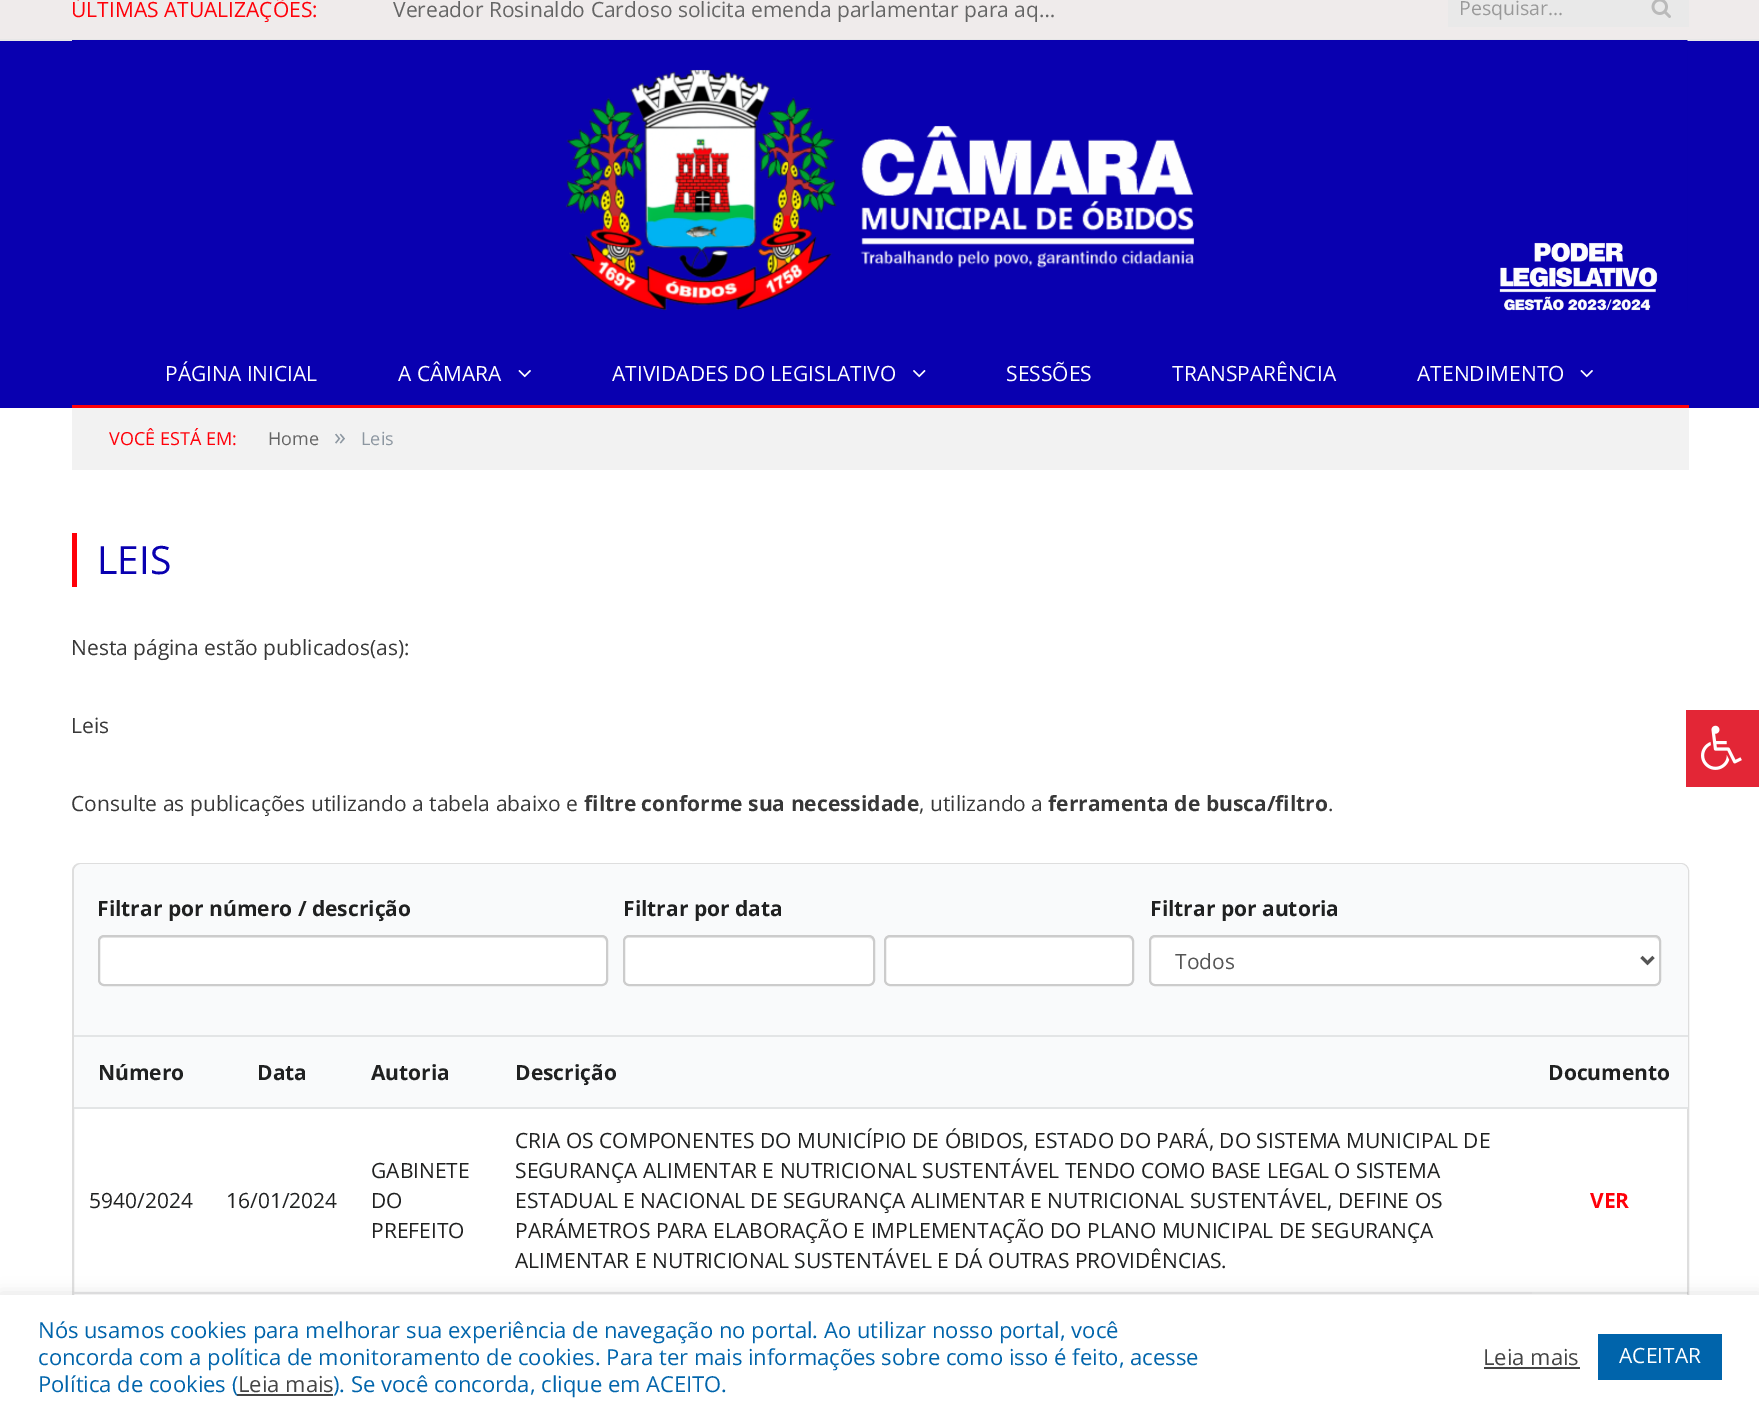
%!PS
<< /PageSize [1759 1417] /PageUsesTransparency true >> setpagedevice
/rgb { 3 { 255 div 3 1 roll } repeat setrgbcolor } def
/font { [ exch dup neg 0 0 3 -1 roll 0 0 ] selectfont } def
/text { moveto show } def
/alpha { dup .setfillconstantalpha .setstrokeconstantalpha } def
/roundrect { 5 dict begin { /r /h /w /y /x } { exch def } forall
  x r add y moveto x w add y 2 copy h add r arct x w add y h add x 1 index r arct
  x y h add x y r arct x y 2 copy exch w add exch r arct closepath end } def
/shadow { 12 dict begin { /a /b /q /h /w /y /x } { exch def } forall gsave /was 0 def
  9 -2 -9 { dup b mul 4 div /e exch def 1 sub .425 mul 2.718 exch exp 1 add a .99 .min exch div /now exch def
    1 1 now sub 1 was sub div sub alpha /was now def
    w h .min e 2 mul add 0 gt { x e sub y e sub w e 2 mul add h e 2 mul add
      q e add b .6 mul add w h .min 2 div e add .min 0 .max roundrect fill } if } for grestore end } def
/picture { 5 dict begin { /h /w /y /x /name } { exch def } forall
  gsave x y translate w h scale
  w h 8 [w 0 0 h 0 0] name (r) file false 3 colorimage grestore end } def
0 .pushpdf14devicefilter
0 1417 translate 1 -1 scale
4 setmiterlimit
255 255 255 rgb
0 0 1759 1417 rectfill
239 235 235 rgb
0 0 1759 39 rectfill
231 231 231 rgb
0 39 1759 2 rectfill
233 233 233 rgb
1448 0 241 27 rectfill
(img_01.rgb) 1651 0 20 18 picture
9 0 176 rgb
0 41 1759 367 rectfill
(img_02.rgb) 72 40 1616 271 picture
255 0 9 rgb
72 405 1617 3 rectfill
(img_03.rgb) 518 370 13 8 picture
(img_04.rgb) 913 370 13 8 picture
(img_03.rgb) 1580 370 13 8 picture
242 242 242 rgb
72 408 1617 62 rectfill
255 0 9 rgb
72 533 5 54 rectfill
222 222 222 rgb
2 setlinewidth
73 864 1615 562 7 roundrect stroke
249 250 251 rgb
82 864 moveto 1598 0 rlineto 4.5 0 8 3.5 8 8 rcurveto 0 165 rlineto -1614 0 rlineto 0 -165 rlineto 0 -4.5 3.5 -8 8 -8 rcurveto closepath fill
227 229 230 rgb
74 1035 1614 2 rectfill
255 255 255 rgb
98 935 510 51 6 roundrect fill
236 236 236 rgb
104 938 moveto 498 0 rlineto 2 0 4 2 4 4 rcurveto 0 -1 rlineto 0 -3 -2 -5 -5 -5 rcurveto -497 0 rlineto -3 0 -5 2 -5 5 rcurveto 0 1 rlineto 0 -2 2 -4 5 -4 rcurveto closepath fill
204 204 204 rgb
99 936 508 49 5 roundrect stroke
255 255 255 rgb
623 935 252 51 6 roundrect fill
236 236 236 rgb
628 938 moveto 240 0 rlineto 3 0 5 2 5 4 rcurveto 0 -1 rlineto 0 -3 -2 -5 -5 -5 rcurveto -239 0 rlineto -3 0 -5 2 -5 5 rcurveto 0 1 rlineto 0 -2 2 -4 4 -4 rcurveto closepath fill
204 204 204 rgb
624 936 250 49 5 roundrect stroke
255 255 255 rgb
884 935 250 51 6 roundrect fill
236 236 236 rgb
890 938 moveto 238 0 rlineto 2 0 4 2 4 4 rcurveto 0 40 rlineto 1 -1 1 -2 1 -3 rcurveto 0 -38 rlineto 0 -3 -2 -5 -5 -5 rcurveto -238 0 rlineto -3 0 -5 2 -5 5 rcurveto 0 1 rlineto 0 -2 2 -4 5 -4 rcurveto closepath fill
204 204 204 rgb
885 936 248 49 5 roundrect stroke
255 255 255 rgb
1149 935 512 51 6 roundrect fill
236 236 236 rgb
1155 938 moveto 499 0 rlineto 3 0 5 2 5 4 rcurveto 0 -1 rlineto 0 -3 -2 -5 -5 -5 rcurveto -498 0 rlineto -2 0 -4 2 -5 4 rcurveto 1 -1 3 -2 4 -2 rcurveto closepath fill
204 204 204 rgb
1150 936 510 49 5 roundrect stroke
85 85 85 rgb
3 setlinewidth
1641.5 957 moveto 6 6 rlineto 6 -6 rlineto stroke
249 250 251 rgb
74 1037 1614 70 rectfill
227 229 230 rgb
74 1107 1614 2 rectfill
228 229 230 rgb
74 1292 1458 2 rectfill
0.1 alpha
34 36 38 rgb
1532 1292 156 2 rectfill
1 alpha
227 38 54 rgb
1686 710 73 77 rectfill
(img_05.rgb) 1701 725 41 45 picture
172 171 171 rgb
0 1293 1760 123 0 7.5 0.3 shadow
255 255 255 rgb
0 1295 1759 122 rectfill
68 68 68 rgb
237 1394 96 2 rectfill
1484 1367 96 2 rectfill
0 100 171 rgb
1598 1334 124 46 rectfill
/OpenSans-Regular 21 font
255 0 9 rgb
(ÚLTIMAS ATUALIZAÇÕES:) 71 17 text
101 101 101 rgb
(Vereador Rosinaldo Cardoso solicita emenda parlamentar para aq…) 393 17 text
/OpenSans-Regular 19.5 font
153 153 153 rgb
(Pesquisar...) 1459 15 text
/OpenSans-Regular 21 font
255 255 255 rgb
(PÁGINA INICIAL) 165 381 text
(A CÂMARA) 398 381 text
(ATIVIDADES DO LEGISLATIVO) 612 381 text
(SESSÕES) 1006 381 text
(TRANSPARÊNCIA) 1172 381 text
(ATENDIMENTO) 1417 381 text
/OpenSans-Regular 18 font
255 0 9 rgb
(VOCÊ ESTÁ EM:) 109 445 text
101 101 101 rgb
(Home) 268 445 text
/OpenSans-Regular 24 font
141 151 161 rgb
(») 334 445 text
/OpenSans-Regular 18 font
(Leis) 361 445 text
/OpenSans-Regular 39 font
9 0 176 rgb
(LEIS) 97 574 text
/OpenSans-Regular 21 font
56 56 56 rgb
(Nesta página estão publicados\(as\):) 71 655 text
(Leis) 71 733 text
(Consulte as publicações utilizando a tabela abaixo e) 71 811 text
/OpenSans-Bold 21 font
(filtre conforme sua necessidade) 584 811 text
/OpenSans-Regular 21 font
(, utilizando a) 919 811 text
/OpenSans-Bold 21 font
(ferramenta de busca/filtro) 1048 811 text
/OpenSans-Regular 21 font
(.) 1328 811 text
/OpenSans-Bold 21 font
32 33 33 rgb
(Filtrar por número / descrição) 97 916 text
(Filtrar por data) 623 916 text
(Filtrar por autoria) 1150 916 text
/OpenSans-Regular 21 font
85 85 85 rgb
(Todos) 1175 969 text
/OpenSans-Bold 21 font
32 33 33 rgb
(Número) 98 1080 text
(Data) 257 1080 text
(Autoria) 371 1080 text
(Descrição) 515 1080 text
(Documento) 1548 1080 text
/OpenSans-Regular 21 font
(5940/2024) 89 1208 text
(16/01/2024) 226 1208 text
(GABINETE) 371 1178 text
(DO) 371 1208 text
(PREFEITO) 371 1238 text
(CRIA OS COMPONENTES DO MUNICÍPIO DE ÓBIDOS, ESTADO DO PARÁ, DO SISTEMA MUNICIPAL DE) 515 1148 text
(SEGURANÇA ALIMENTAR E NUTRICIONAL SUSTENTÁVEL TENDO COMO BASE LEGAL O SISTEMA) 515 1178 text
(ESTADUAL E NACIONAL DE SEGURANÇA ALIMENTAR E NUTRICIONAL SUSTENTÁVEL, DEFINE OS) 515 1208 text
(PARÁMETROS PARA ELABORAÇÃO E IMPLEMENTAÇÃO DO PLANO MUNICIPAL DE SEGURANÇA) 515 1238 text
(ALIMENTAR E NUTRICIONAL SUSTENTÁVEL E DÁ OUTRAS PROVIDÊNCIAS.) 515 1268 text
/OpenSans-Bold 21 font
255 0 9 rgb
(VER) 1590 1208 text
/OpenSans-Regular 22 font
0 100 171 rgb
(Nós usamos cookies para melhorar sua experiência de navegação no portal. Ao utilizar nosso portal, você) 38 1338 text
(concorda com a política de monitoramento de cookies. Para ter mais informações sobre como isso é feito, acesse) 38 1365 text
(Política de cookies \() 38 1392 text
68 68 68 rgb
(Leia mais) 238 1392 text
0 100 171 rgb
(\). Se você concorda, clique em ACEITO.) 333 1392 text
68 68 68 rgb
(Leia mais) 1483 1365 text
/OpenSans-Regular 21 font
255 255 255 rgb
(ACEITAR) 1619 1363 text
.poppdf14devicefilter showpage
